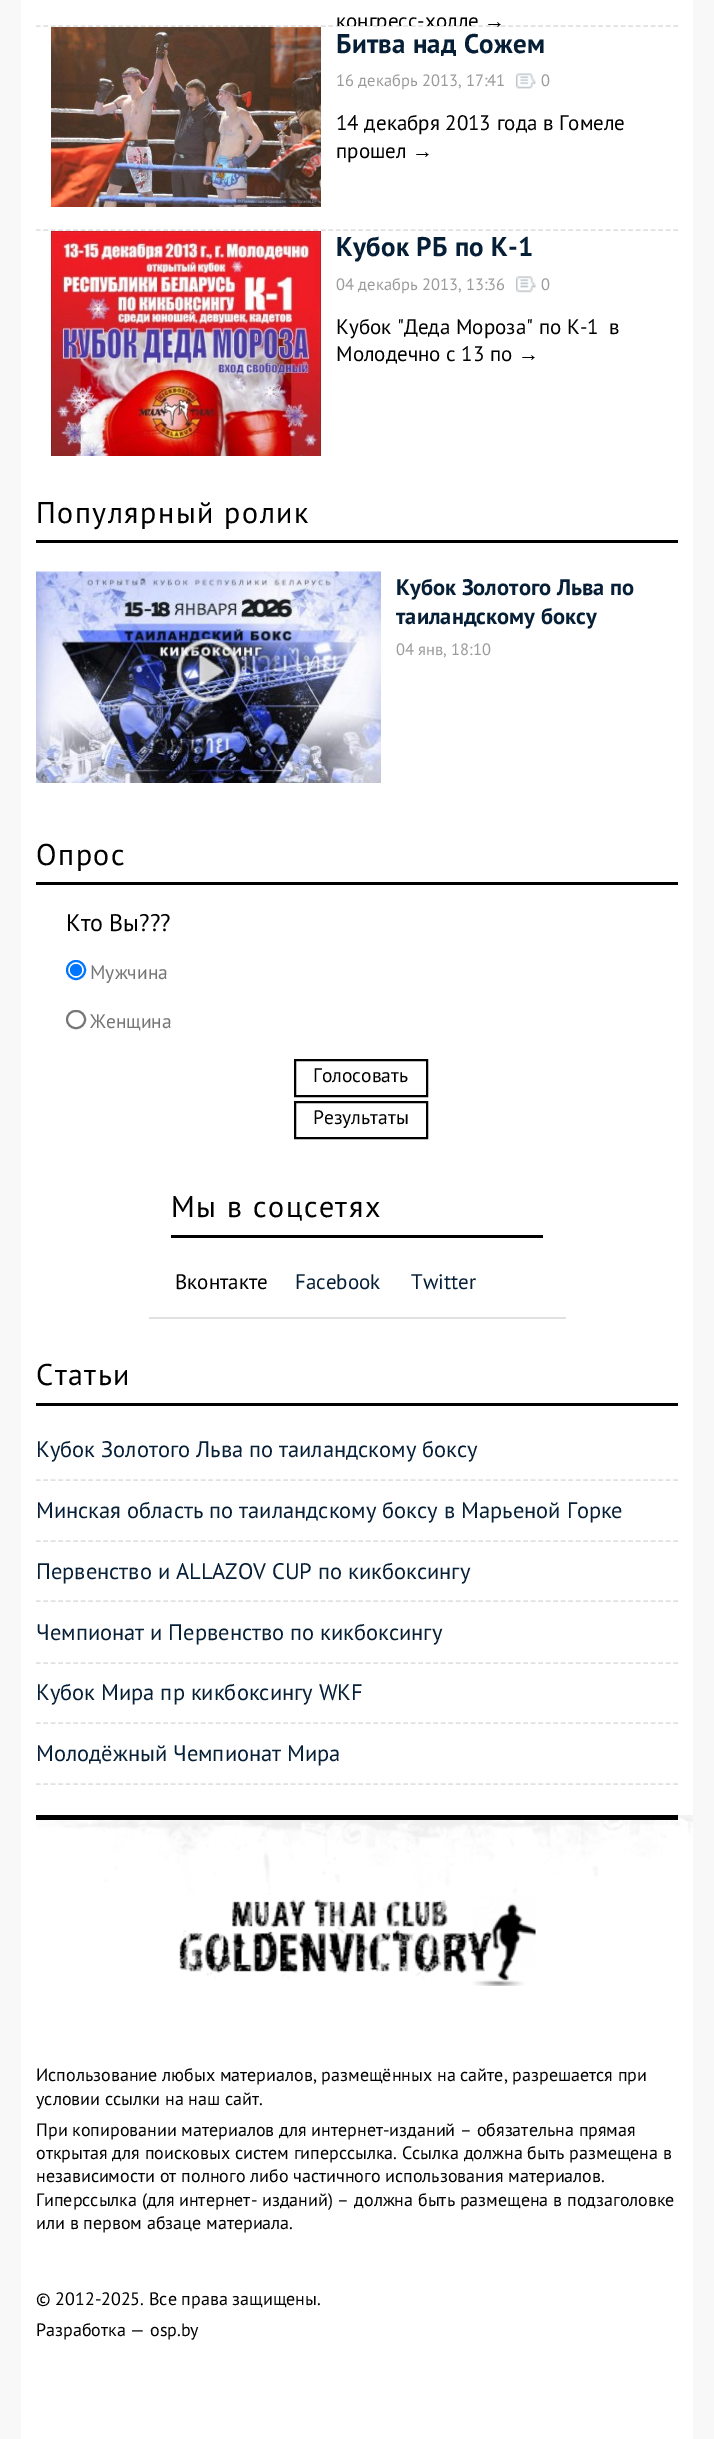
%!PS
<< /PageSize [714 2439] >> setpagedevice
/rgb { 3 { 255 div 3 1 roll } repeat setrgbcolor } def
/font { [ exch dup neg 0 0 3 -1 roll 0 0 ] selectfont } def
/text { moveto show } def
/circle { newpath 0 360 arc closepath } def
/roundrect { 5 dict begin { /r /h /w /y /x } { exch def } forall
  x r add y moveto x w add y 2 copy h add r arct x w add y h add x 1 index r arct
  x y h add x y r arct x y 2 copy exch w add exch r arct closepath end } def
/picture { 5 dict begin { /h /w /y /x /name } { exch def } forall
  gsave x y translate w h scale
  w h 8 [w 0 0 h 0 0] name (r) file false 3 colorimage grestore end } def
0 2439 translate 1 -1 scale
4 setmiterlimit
248 248 248 rgb
0 0 714 2439 rectfill
255 255 255 rgb
21 0 672 2439 rectfill
225 225 225 rgb
1.5 setlinewidth
[4.5 3] 0 setdash
36 26 moveto 642 0 rlineto stroke
36 230 moveto 642 0 rlineto stroke
(img_01.rgb) 51 27 270 180 picture
(img_02.rgb) 516 73 20 16 picture
(img_03.rgb) 51 231 270 225 picture
(img_04.rgb) 516 276 20 17 picture
0 0 0 rgb
36 540 642 3 rectfill
(img_05.rgb) 36 571 345 212 picture
(img_06.rgb) 176 637 68 68 picture
36 882 642 3 rectfill
0 117 255 rgb
2 setlinewidth
[] 0 setdash
76 970 9 circle stroke
76 970 6 circle fill
118 118 118 rgb
67 1011 18 17 8.5 roundrect stroke
0 0 0 rgb
295 1060 132 36 rectstroke
295 1102 132 36 rectstroke
171 1235 372 3 rectfill
225 225 225 rgb
149 1317 417 2 rectfill
0 0 0 rgb
36 1403 642 3 rectfill
225 225 225 rgb
1.5 setlinewidth
[4.5 3] 0 setdash
36 1480 moveto 642 0 rlineto stroke
36 1541 moveto 642 0 rlineto stroke
36 1601 moveto 642 0 rlineto stroke
36 1663 moveto 642 0 rlineto stroke
36 1723 moveto 642 0 rlineto stroke
36 1784 moveto 642 0 rlineto stroke
(img_07.rgb) 37 1815 656 80 picture
0 0 0 rgb
36 1815 642 5 rectfill
(img_08.rgb) 179 1895 357 91 picture
gsave
36 0 642 26 rectclip
/PTSans-Regular 21 font
(конгресс-холле) 336 28 text
grestore
/LiberationSans-Regular 21 font
(→) 484 28 text
/PTSans-Bold 27 font
6 31 55 rgb
336 53 moveto 0.25 0 (Битва над Сожем) ashow
/PTSans-Regular 16.5 font
155 155 155 rgb
(16 декабрь 2013, 17:41) 336 86 text
(0) 541 86 text
/PTSans-Regular 21 font
0 0 0 rgb
(14 декабря 2013 года в Гомеле) 336 130 text
(прошел) 336 158 text
/LiberationSans-Regular 21 font
(→) 412 158 text
/PTSans-Bold 27 font
6 31 55 rgb
336 256 moveto 0.25 0 (Кубок РБ по К-1) ashow
/PTSans-Regular 16.5 font
155 155 155 rgb
(04 декабрь 2013, 13:36) 336 290 text
(0) 541 290 text
/PTSans-Regular 21 font
0 0 0 rgb
(Кубок "Деда Мороза" по К-1) 336 334 text
(в) 609 334 text
(Молодечно с 13 по) 336 361 text
/LiberationSans-Regular 21 font
(→) 518 361 text
/PTSans-Regular 30 font
36 523 moveto 1.5 0 (Популярный ролик) ashow
/PTSans-Bold 22.5 font
6 31 55 rgb
(Кубок Золотого Льва по) 396 595 text
(таиландскому боксу) 396 624 text
/PTSans-Regular 16.5 font
155 155 155 rgb
(04 янв, 18:10) 396 655 text
/PTSans-Regular 30 font
0 0 0 rgb
36 865 moveto 1.5 0 (Опрос) ashow
/PTSans-Regular 24 font
(Кто Вы???) 66 931 text
/PTSans-Regular 19.5 font
117 117 117 rgb
(Мужчина) 90 979 text
(Женщина) 90 1028 text
0 0 0 rgb
(Голосовать) 313 1082 text
(Результаты) 313 1124 text
/PTSans-Regular 30 font
171 1217 moveto 1.5 0 (Мы в соцсетях) ashow
/PTSans-Regular 21 font
(Вконтакте) 175 1289 text
6 31 55 rgb
(Facebook) 295 1289 text
(Twitter) 411 1289 text
/PTSans-Regular 30 font
0 0 0 rgb
36 1385 moveto 1.5 0 (Статьи) ashow
/PTSans-Regular 22.5 font
6 31 55 rgb
(Кубок Золотого Льва по таиландскому боксу) 36 1457 text
(Минская область по таиландскому боксу в Марьеной Горке) 36 1518 text
(Первенство и ALLAZOV CUP по кикбоксингу) 36 1579 text
(Чемпионат и Первенство по кикбоксингу) 36 1640 text
(Кубок Мира пр кикбоксингу WKF) 36 1700 text
(Молодёжный Чемпионат Мира) 36 1761 text
/PTSans-Regular 18 font
0 0 0 rgb
(Использование любых материалов, размещённых на сайте, разрешается при) 36 2081 text
(условии ссылки на наш сайт.) 36 2105 text
(При копировании материалов для интернет-изданий – обязательна прямая) 36 2136 text
(открытая для поисковых систем гиперссылка. Ссылка должна быть размещена в) 36 2159 text
(независимости от полного либо частичного использования материалов.) 36 2182 text
(Гиперссылка \(для интернет- изданий\) – должна быть размещена в подзаголовке) 36 2206 text
(или в первом абзаце материала.) 36 2229 text
(© 2012-2025. Все права защищены.) 36 2305 text
(Разработка — osp.by) 36 2336 text
showpage
